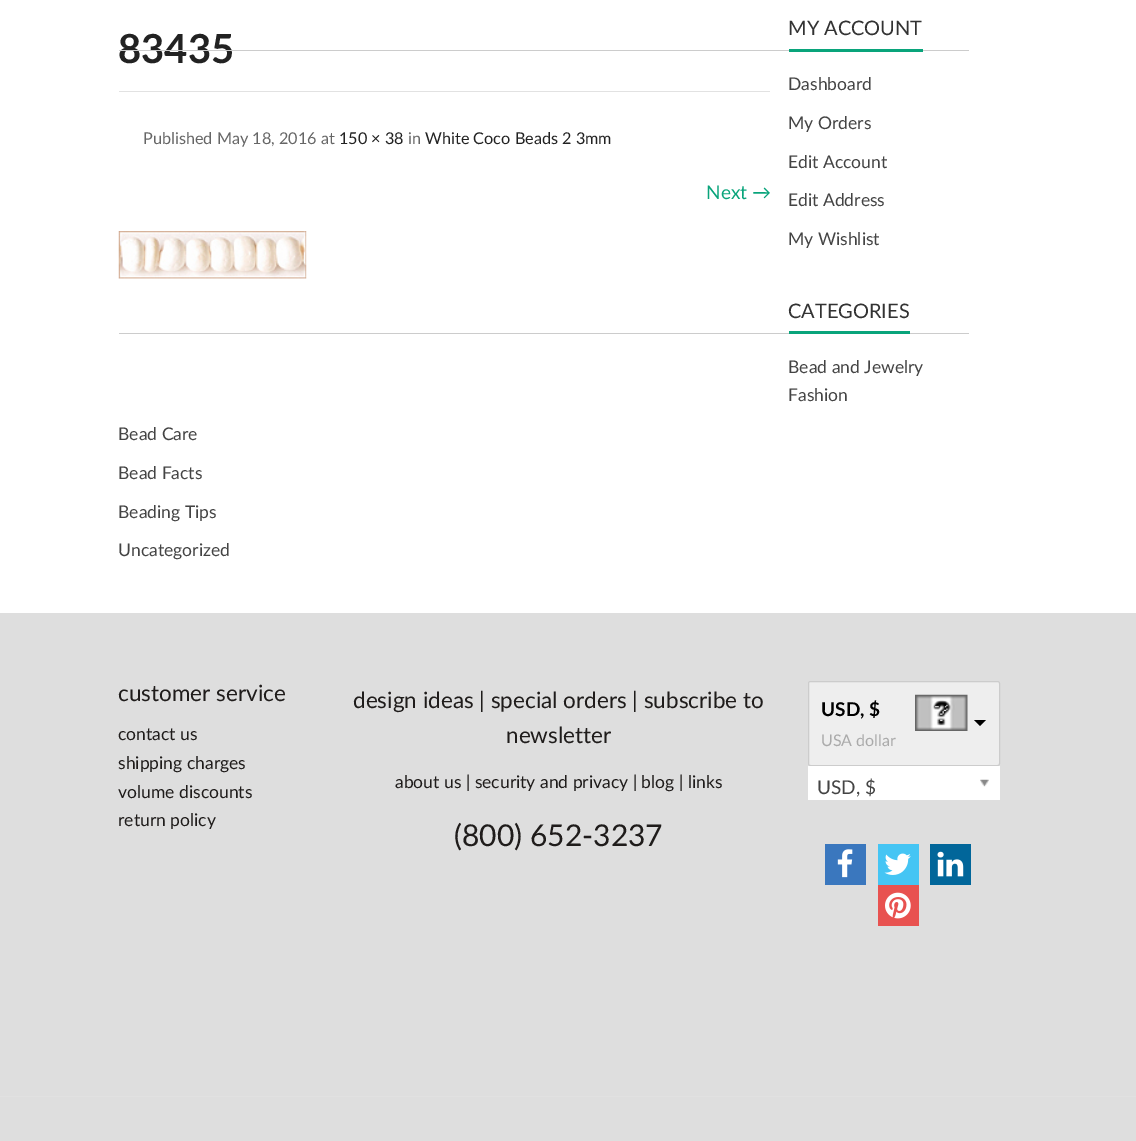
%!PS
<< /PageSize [1136 1141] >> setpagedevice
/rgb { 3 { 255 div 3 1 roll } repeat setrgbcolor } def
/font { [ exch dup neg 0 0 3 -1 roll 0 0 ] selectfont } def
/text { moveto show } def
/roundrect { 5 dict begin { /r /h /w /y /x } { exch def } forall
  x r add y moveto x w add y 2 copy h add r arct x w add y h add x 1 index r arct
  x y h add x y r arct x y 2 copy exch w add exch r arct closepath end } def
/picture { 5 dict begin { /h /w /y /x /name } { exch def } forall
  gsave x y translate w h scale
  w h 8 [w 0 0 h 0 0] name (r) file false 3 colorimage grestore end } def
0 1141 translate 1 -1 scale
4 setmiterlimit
255 255 255 rgb
0 0 1136 1141 rectfill
204 204 204 rgb
119 333 850 1 rectfill
9 164 123 rgb
789 331 121 3 rectfill
226 226 226 rgb
119 91 651 1 rectfill
(img_01.rgb) 118 231 189 48 picture
222 222 222 rgb
0 613 1136 483 rectfill
238 238 238 rgb
808.5 681.5 191 84 2 roundrect gsave fill grestore
204 204 204 rgb
stroke
(img_02.rgb) 915 694 53 37 picture
0 0 0 rgb
974 720 moveto 12 0 rlineto -6 6 rlineto closepath fill
255 255 255 rgb
808 766 192 34 rectfill
(img_03.rgb) 980 779 9 8 picture
58 119 190 rgb
825 844 41 41 rectfill
(img_04.rgb) 837 849 16 29 picture
69 197 244 rgb
878 844 41 41 rectfill
(img_05.rgb) 884 853 27 22 picture
1 102 154 rgb
930 844 41 41 rectfill
(img_06.rgb) 937 851 27 26 picture
232 82 80 rgb
878 885 41 41 rectfill
(img_07.rgb) 885 892 26 27 picture
222 222 222 rgb
0 1097 1136 44 rectfill
225 225 225 rgb
0 1096 1136 1 rectfill
/Lato-Regular 20 font
51 51 51 rgb
(MY ACCOUNT) 788 35 text
/Lato-Regular 17.5 font
68 68 68 rgb
(Dashboard) 788 90 text
(My Orders) 788 129 text
(Edit Account) 788 168 text
(Edit Address) 788 206 text
(My Wishlist) 788 245 text
/Lato-Regular 20 font
51 51 51 rgb
(CATEGORIES) 788 318 text
/Lato-Regular 17.5 font
68 68 68 rgb
(Bead and Jewelry) 788 373 text
(Fashion) 788 401 text
(Bead Care) 118 440 text
(Bead Facts) 118 479 text
(Beading Tips) 118 518 text
(Uncategorized) 118 556 text
/Lato-Bold 40 font
34 34 34 rgb
(83435) 118 63 text
204 204 204 rgb
119 50 850 1 rectfill
9 164 123 rgb
789 49 134 3 rectfill
/Lato-Regular 16.25 font
102 102 102 rgb
(Published May 18, 2016 at) 143 144 text
34 34 34 rgb
(150 × 38) 339 144 text
102 102 102 rgb
(in) 408 144 text
34 34 34 rgb
(White Coco Beads 2 3mm) 425 144 text
/Lato-Regular 19 font
9 164 123 rgb
(Next →) 706 199 text
/Lato-Regular 22.5 font
31 28 27 rgb
(customer service) 118 701 text
/Lato-Regular 17.5 font
(contact us) 118 740 text
(shipping charges) 118 769 text
(volume discounts) 118 798 text
(return policy) 118 826 text
/Lato-Regular 22.5 font
(design ideas | special orders | subscribe to) 353 708 text
(newsletter) 506 743 text
/Lato-Regular 17.5 font
(about us | security and privacy | blog | links) 395 788 text
/Lato-Regular 30 font
(\(800\) 652-3237) 454 846 text
/Lato-Bold 19 font
0 0 0 rgb
(USD, $) 821 716 text
/Lato-Regular 16 font
170 170 170 rgb
(USA dollar) 821 746 text
/Lato-Regular 19 font
68 68 68 rgb
(USD, $) 817 794 text
showpage
